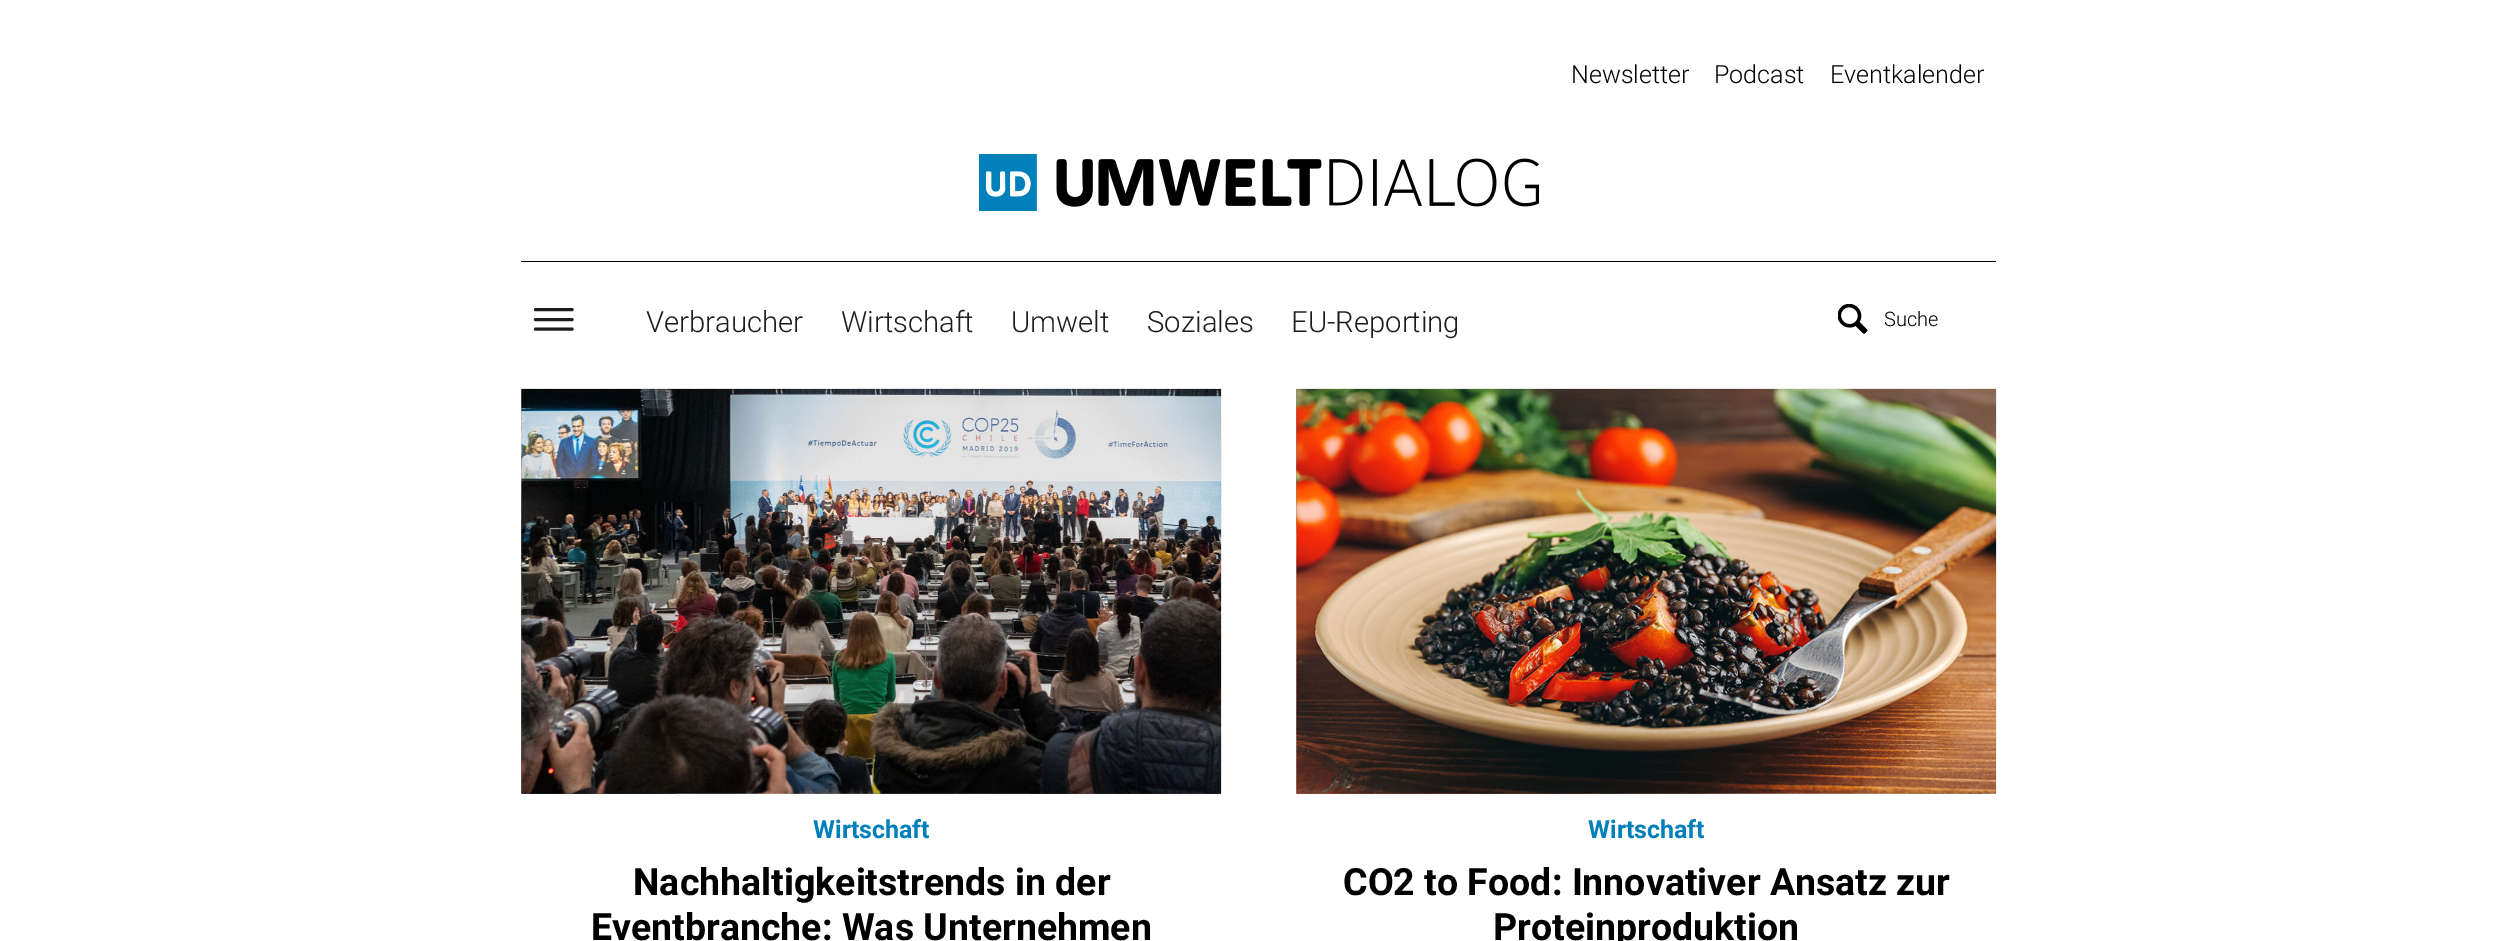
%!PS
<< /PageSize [2517 941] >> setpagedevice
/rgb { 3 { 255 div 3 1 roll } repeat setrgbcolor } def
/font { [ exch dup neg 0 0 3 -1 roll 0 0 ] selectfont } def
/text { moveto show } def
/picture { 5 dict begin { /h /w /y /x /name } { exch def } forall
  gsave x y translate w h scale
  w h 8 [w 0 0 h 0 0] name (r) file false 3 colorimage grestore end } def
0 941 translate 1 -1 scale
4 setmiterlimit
255 255 255 rgb
0 0 2517 941 rectfill
0 0 0 rgb
521 261 1475 1 rectfill
(img_01.rgb) 979 154 560 57 picture
gsave
534 308 40 23 rectclip
29 29 27 rgb
3.1 setlinewidth
1 setlinecap
1 setlinejoin
535.5 309.5 moveto 36.5 0 rlineto stroke
grestore
29 29 27 rgb
3.1 setlinewidth
1 setlinecap
1 setlinejoin
535.5 319.5 moveto 36.5 0 rlineto 535.5 329 moveto 36.5 0 rlineto stroke
(img_02.rgb) 1838 304 30 30 picture
(img_03.rgb) 521 388 701 406 picture
(img_04.rgb) 521 388 701 406 picture
(img_05.rgb) 1296 388 701 406 picture
(img_06.rgb) 1296 388 701 406 picture
/Roboto-Light 25 font
0 0 0 rgb
(Newsletter) 1571 83 text
(Podcast) 1714 83 text
(Eventkalender) 1830 83 text
/Roboto-Light 29.25 font
29 29 27 rgb
(Verbraucher) 646 332 text
(Wirtschaft) 841 332 text
(Umwelt) 1011 332 text
(Soziales) 1147 332 text
(EU-Reporting) 1291 332 text
/Roboto-Light 20 font
0 0 0 rgb
(Suche) 1884 326 text
/Roboto-Bold 25 font
0 128 187 rgb
(Wirtschaft) 813 838 text
/Roboto-Bold 37.5 font
0 0 0 rgb
(Nachhaltigkeitstrends in der) 633 895 text
(Eventbranche: Was Unternehmen) 591 940 text
/Roboto-Bold 25 font
0 128 187 rgb
(Wirtschaft) 1588 838 text
/Roboto-Bold 37.5 font
0 0 0 rgb
(CO2 to Food: Innovativer Ansatz zur) 1343 895 text
(Proteinproduktion) 1493 940 text
showpage
